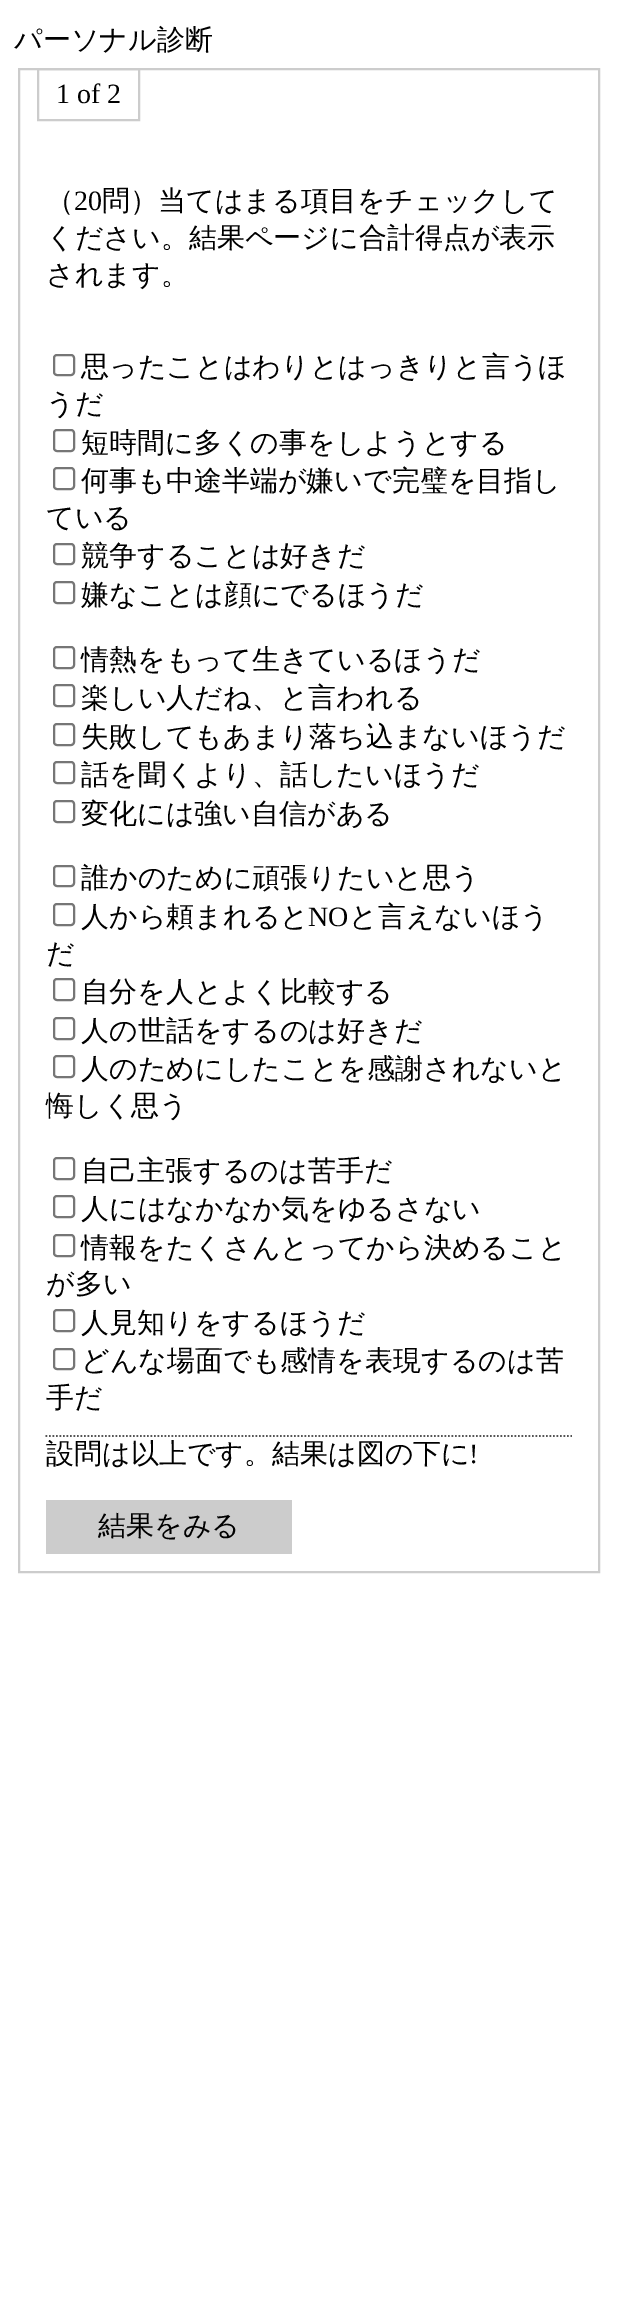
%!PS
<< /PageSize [617 2305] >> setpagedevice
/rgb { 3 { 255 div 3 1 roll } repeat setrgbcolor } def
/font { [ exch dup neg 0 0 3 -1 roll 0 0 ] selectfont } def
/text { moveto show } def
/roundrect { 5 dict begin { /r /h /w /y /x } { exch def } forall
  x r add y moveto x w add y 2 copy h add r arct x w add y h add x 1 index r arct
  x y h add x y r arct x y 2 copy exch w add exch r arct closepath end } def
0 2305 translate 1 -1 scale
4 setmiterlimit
255 255 255 rgb
0 0 617 2305 rectfill
204 204 204 rgb
2 setlinewidth
19 69 580 1503 rectstroke
38 69 101 51 rectstroke
118 118 118 rgb
54 355 20 20 3 roundrect stroke
54 430 20 21 3 roundrect stroke
54 468 20 21 3 roundrect stroke
54 544 20 20 3 roundrect stroke
54 582 20 21 3 roundrect stroke
54 647 20 21 3 roundrect stroke
54 685 20 21 3 roundrect stroke
54 724 20 21 3 roundrect stroke
54 762 20 21 3 roundrect stroke
54 801 20 21 3 roundrect stroke
54 866 20 20 3 roundrect stroke
54 904 20 21 3 roundrect stroke
54 979 20 21 3 roundrect stroke
54 1018 20 21 3 roundrect stroke
54 1056 20 21 3 roundrect stroke
54 1158 20 21 3 roundrect stroke
54 1196 20 21 3 roundrect stroke
54 1235 20 21 3 roundrect stroke
54 1310 20 21 3 roundrect stroke
54 1349 20 20 3 roundrect stroke
85 85 85 rgb
1.8 setlinewidth
[1.75 1.75] 0 setdash
45.5 1436 moveto 526.5 0 rlineto stroke
204 204 204 rgb
46 1500 246 54 rectfill
/WenQuanYiZenHei-Medium 28 font
0 0 0 rgb
(パーソナル診断) 14 49 text
/LiberationSerif-Regular 28 font
(1 of 2) 56 103 text
/WenQuanYiZenHei-Medium 28 font
(（) 46 210 text
/LiberationSerif-Regular 28 font
(20) 74 210 text
/WenQuanYiZenHei-Medium 28 font
(問）当てはまる項目をチェックして) 102 210 text
(ください。結果ページに合計得点が表示) 46 247 text
(されます。) 46 284 text
(思ったことはわりとはっきりと言うほ) 81 376 text
(うだ) 46 413 text
(短時間に多くの事をしようとする) 81 452 text
(何事も中途半端が嫌いで完璧を目指し) 81 490 text
(ている) 46 527 text
(競争することは好きだ) 81 565 text
(嫌なことは顔にでるほうだ) 81 604 text
(情熱をもって生きているほうだ) 81 669 text
(楽しい人だね、と言われる) 81 707 text
(失敗してもあまり落ち込まないほうだ) 81 746 text
(話を聞くより、話したいほうだ) 81 784 text
(変化には強い自信がある) 81 823 text
(誰かのために頑張りたいと思う) 81 887 text
(人から頼まれると) 81 926 text
/LiberationSerif-Regular 28 font
(NO) 308 926 text
/WenQuanYiZenHei-Medium 28 font
(と言えないほう) 349 926 text
(だ) 46 963 text
(自分を人とよく比較する) 81 1001 text
(人の世話をするのは好きだ) 81 1040 text
(人のためにしたことを感謝されないと) 81 1078 text
(悔しく思う) 46 1115 text
(自己主張するのは苦手だ) 81 1180 text
(人にはなかなか気をゆるさない) 81 1218 text
(情報をたくさんとってから決めること) 81 1257 text
(が多い) 46 1293 text
(人見知りをするほうだ) 81 1332 text
(どんな場面でも感情を表現するのは苦) 81 1370 text
(手だ) 46 1407 text
(設問は以上です。結果は図の下に) 46 1463 text
/LiberationSerif-Regular 28 font
(!) 469 1463 text
/WenQuanYiZenHei-Medium 28 font
(結果をみる) 98 1535 text
showpage
